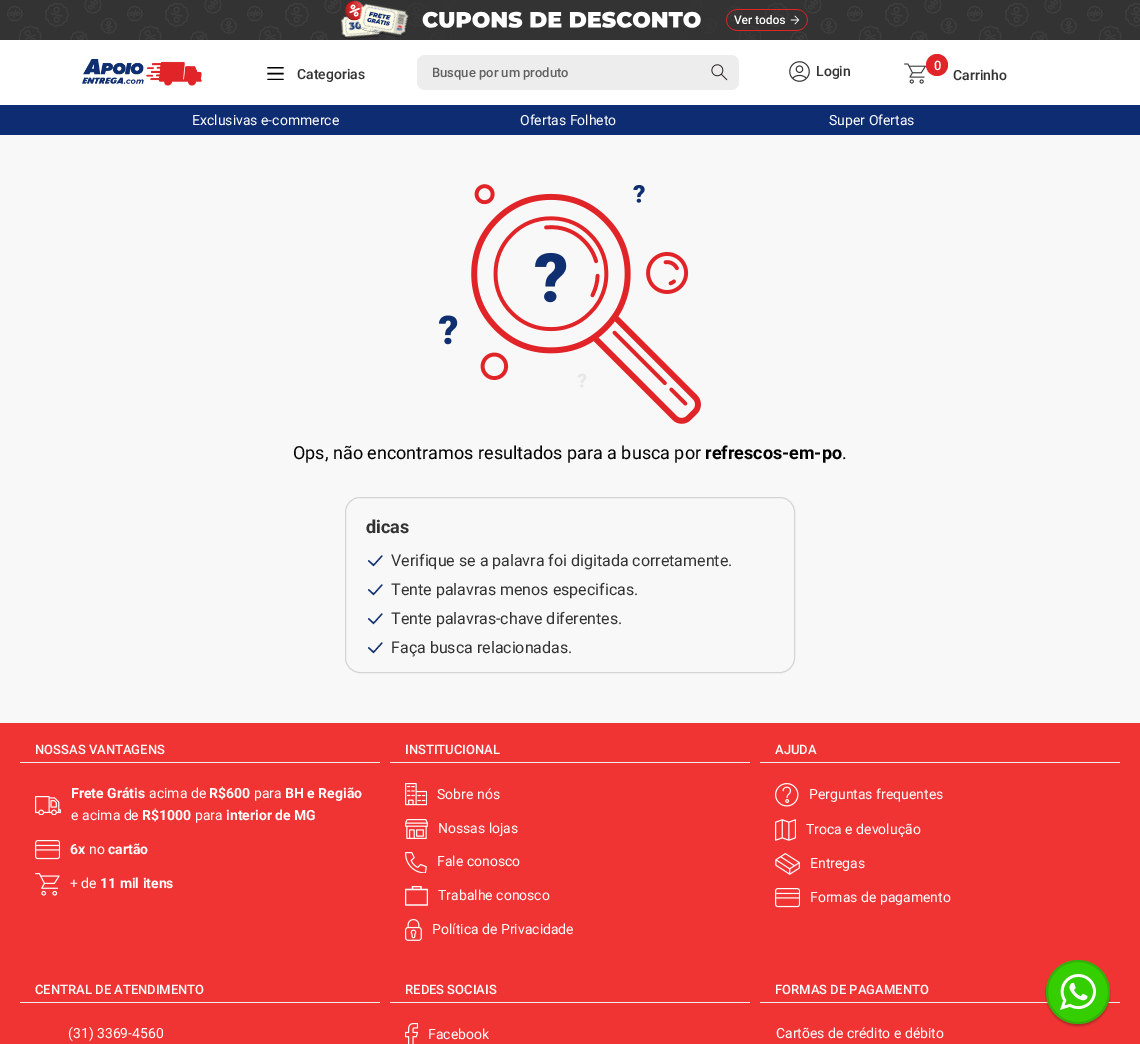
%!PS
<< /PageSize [1140 1044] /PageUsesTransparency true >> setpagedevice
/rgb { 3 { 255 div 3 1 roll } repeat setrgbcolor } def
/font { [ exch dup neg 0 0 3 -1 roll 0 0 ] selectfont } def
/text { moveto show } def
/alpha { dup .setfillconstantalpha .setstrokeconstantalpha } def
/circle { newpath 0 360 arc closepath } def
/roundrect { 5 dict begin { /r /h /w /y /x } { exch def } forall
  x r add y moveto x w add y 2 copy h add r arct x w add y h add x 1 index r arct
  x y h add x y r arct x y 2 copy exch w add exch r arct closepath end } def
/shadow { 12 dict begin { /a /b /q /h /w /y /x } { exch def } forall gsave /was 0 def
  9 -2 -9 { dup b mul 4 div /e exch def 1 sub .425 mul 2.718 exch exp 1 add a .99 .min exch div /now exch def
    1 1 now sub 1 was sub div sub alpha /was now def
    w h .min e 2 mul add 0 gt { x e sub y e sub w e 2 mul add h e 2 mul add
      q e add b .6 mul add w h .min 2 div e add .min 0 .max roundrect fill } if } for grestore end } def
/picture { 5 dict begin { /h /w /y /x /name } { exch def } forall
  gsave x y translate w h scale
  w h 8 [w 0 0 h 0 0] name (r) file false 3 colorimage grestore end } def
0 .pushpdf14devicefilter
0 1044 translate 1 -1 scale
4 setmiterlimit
248 248 248 rgb
0 0 1140 1044 rectfill
255 255 255 rgb
0 40 1140 65 rectfill
(img_01.rgb) 0 0 1140 40 picture
(img_02.rgb) 339 0 469 40 picture
(img_03.rgb) 82 59 120 27 picture
gsave
267 67 17 13 rectclip
0 0 0 rgb
1.5 setlinewidth
1 setlinecap
1 setlinejoin
268 67.5 moveto 15 0 rlineto 268 73.5 moveto 15 0 rlineto 268 79.5 moveto 15 0 rlineto stroke
grestore
237 237 237 rgb
417 55 322 35 8 roundrect fill
(img_04.rgb) 711 64 17 17 picture
(img_05.rgb) 789 61 21 21 picture
(img_06.rgb) 904 63 22 21 picture
225 36 40 rgb
937 65 11 circle fill
14 44 113 rgb
0 105 1140 30 rectfill
(img_07.rgb) 439 184 262 240 picture
213 213 213 rgb
345.5 497.5 449 175 14.5 roundrect stroke
(img_08.rgb) 368 555 15 12 picture
(img_09.rgb) 368 584 15 12 picture
(img_08.rgb) 368 613 15 12 picture
(img_08.rgb) 368 642 15 12 picture
240 52 52 rgb
0 723 1140 321 rectfill
238 238 238 rgb
20 762 360 1 rectfill
(img_10.rgb) 35 796 26 19 picture
(img_11.rgb) 35 840 25 20 picture
(img_12.rgb) 35 873 25 23 picture
390 762 360 1 rectfill
(img_13.rgb) 405 783 22 23 picture
(img_14.rgb) 405 819 23 20 picture
(img_15.rgb) 405 852 22 21 picture
gsave
405 886 23 20 rectclip
255 255 255 rgb
1.2 setlinewidth
1 setlinecap
1 setlinejoin
421 889.5 moveto 6.5 0 rlineto 0 15.5 rlineto -22 0 rlineto 0 -15.5 rlineto 7 0 rlineto 0 -3 rlineto 8.5 0 rlineto 0 3 rlineto -8.5 0 rlineto stroke
grestore
(img_16.rgb) 405 919 17 22 picture
760 762 360 1 rectfill
(img_17.rgb) 775 783 24 24 picture
(img_18.rgb) 775 819 21 22 picture
(img_19.rgb) 775 853 25 22 picture
(img_11.rgb) 775 888 25 20 picture
20 1002 360 1 rectfill
390 1002 360 1 rectfill
(img_20.rgb) 405 1023 13 21 picture
760 1002 360 1 rectfill
0 0 0 rgb
1046 962 64 64 32 1 0.25 shadow
53 206 0 rgb
1078 992 32 circle fill
0.2 alpha
51 51 51 rgb
2 setlinewidth
1078 992 31 circle stroke
1 alpha
(img_21.rgb) 1060 974 36 36 picture
/Roboto-Medium 14 font
(Categorias) 297 79 text
/Roboto-Medium 13 font
97 97 97 rgb
(Busque por um produto) 432 77 text
/Roboto-Medium 14 font
51 51 51 rgb
(Login) 816 76 text
/Roboto-Medium 13 font
255 255 255 rgb
(0) 934 70 text
/Roboto-Medium 14 font
51 51 51 rgb
(Carrinho) 953 80 text
/Roboto-Regular 14 font
255 255 255 rgb
(Exclusivas e-commerce) 192 125 text
(Ofertas Folheto) 520 125 text
(Super Ofertas) 829 125 text
/Roboto-Regular 18 font
0 0 0 rgb
(Ops, não encontramos resultados para a busca por) 293 459 text
/Roboto-Bold 18 font
(refrescos-em-po) 705 459 text
/Roboto-Regular 18 font
(.) 842 459 text
/Roboto-Bold 18 font
51 51 51 rgb
(dicas) 366 533 text
/Roboto-Regular 16 font
(Verifique se a palavra foi digitada corretamente.) 391 566 text
(Tente palavras menos especificas.) 391 595 text
(Tente palavras-chave diferentes.) 391 624 text
(Faça busca relacionadas.) 391 653 text
/Roboto-Medium 13 font
255 255 255 rgb
(NOSSAS VANTAGENS) 35 754 text
/Roboto-Bold 14 font
(Frete Grátis) 71 798 text
/Roboto-Regular 14 font
(acima de) 149 798 text
/Roboto-Bold 14 font
(R$600) 209 798 text
/Roboto-Regular 14 font
(para) 254 798 text
/Roboto-Bold 14 font
(BH e Região) 285 798 text
/Roboto-Regular 14 font
(e acima de) 71 820 text
/Roboto-Bold 14 font
(R$1000) 142 820 text
/Roboto-Regular 14 font
(para) 195 820 text
/Roboto-Bold 14 font
(interior de MG) 226 820 text
(6x) 70 854 text
/Roboto-Regular 14 font
(no) 89 854 text
/Roboto-Bold 14 font
(cartão) 108 854 text
/Roboto-Regular 14 font
(+ de) 70 888 text
/Roboto-Bold 14 font
(11 mil itens) 100 888 text
/Roboto-Medium 13 font
(INSTITUCIONAL) 405 754 text
/Roboto-Regular 14 font
(Sobre nós) 437 799 text
(Nossas lojas) 438 833 text
(Fale conosco) 437 866 text
(Trabalhe conosco) 438 900 text
(Política de Privacidade) 432 934 text
/Roboto-Medium 13 font
(AJUDA) 775 754 text
/Roboto-Regular 14 font
(Perguntas frequentes) 809 799 text
(Troca e devolução) 806 834 text
(Entregas) 810 868 text
(Formas de pagamento) 810 902 text
/Roboto-Medium 13 font
(CENTRAL DE ATENDIMENTO) 35 994 text
/Roboto-Regular 14 font
(\(31\) 3369-4560) 68 1038 text
/Roboto-Medium 13 font
(REDES SOCIAIS) 405 994 text
/Roboto-Regular 14 font
(Facebook) 428 1039 text
/Roboto-Medium 13 font
(FORMAS DE PAGAMENTO) 775 994 text
/Roboto-Regular 14 font
(Cartões de crédito e débito) 776 1038 text
.poppdf14devicefilter showpage
